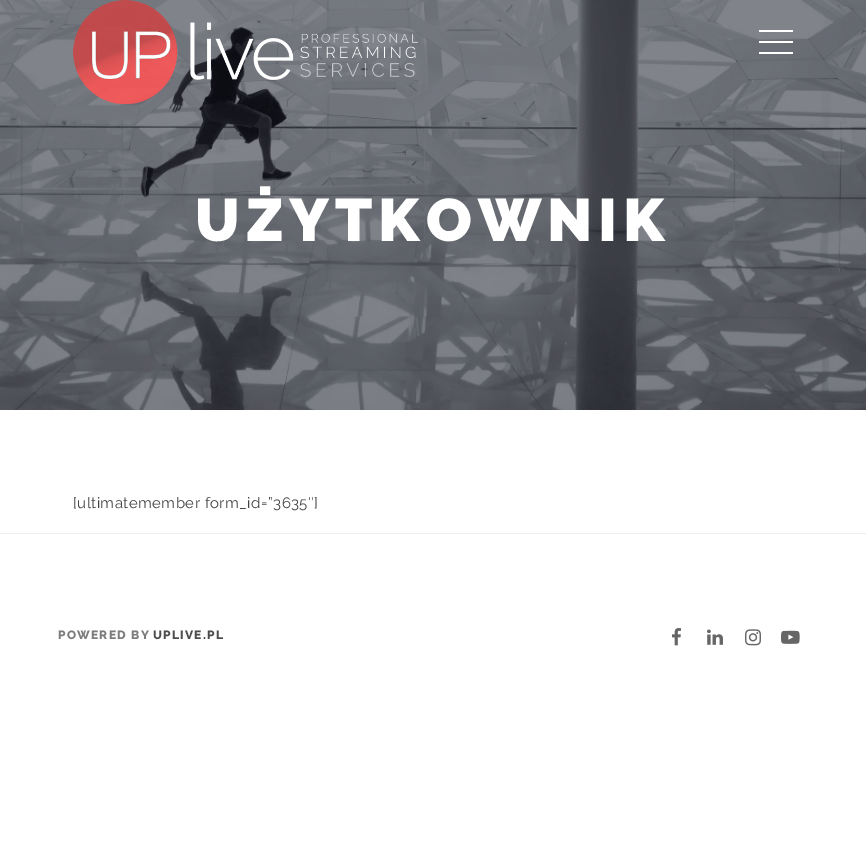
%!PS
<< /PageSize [866 866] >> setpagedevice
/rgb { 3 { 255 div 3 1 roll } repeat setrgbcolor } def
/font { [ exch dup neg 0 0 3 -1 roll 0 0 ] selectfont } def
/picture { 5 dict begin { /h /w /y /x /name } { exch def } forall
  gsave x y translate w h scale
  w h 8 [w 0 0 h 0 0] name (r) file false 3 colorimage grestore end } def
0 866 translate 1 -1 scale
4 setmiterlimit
255 255 255 rgb
0 0 866 866 rectfill
(img_02.rgb) 0 0 866 410 picture
(img_01.rgb) 73 0 345 104 picture
759 30 34 2 rectfill
759 41 34 2 rectfill
759 52 34 2 rectfill
238 238 238 rgb
0 533 866 1 rectfill
(img_03.rgb) 672 628 9 18 picture
(img_04.rgb) 707 629 16 16 picture
(img_05.rgb) 745 629 16 17 picture
(img_06.rgb) 781 630 19 14 picture
/Raleway-Black 60 font
255 255 255 rgb
195 241 moveto 6 0 (UŻYTKOWNIK) ashow
/Raleway-Regular 15 font
68 68 68 rgb
73 508 moveto 0.45 0 ([ultimatemember form_id=”3635″]) ashow
/Raleway-ExtraBold 12 font
124 124 124 rgb
58 639 moveto 1.25 0 (POWERED BY) ashow
77 77 77 rgb
153 639 moveto 1.25 0 (UPLIVE.PL) ashow
showpage
